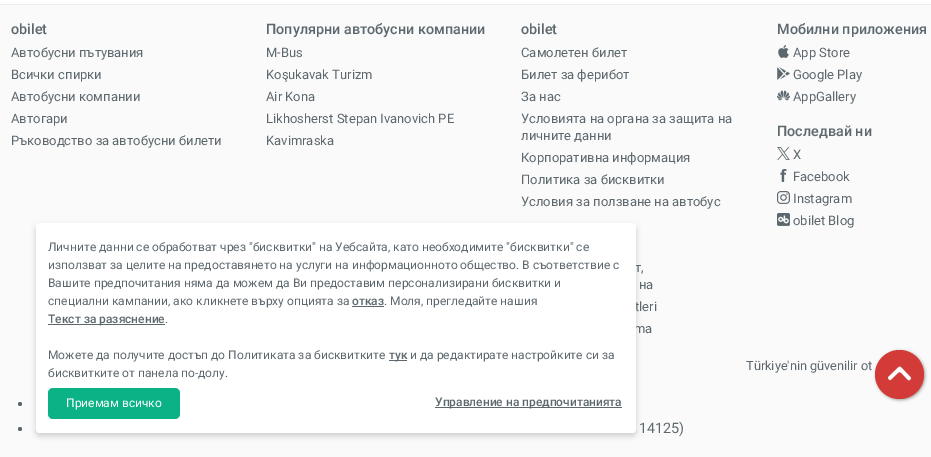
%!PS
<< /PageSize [931 457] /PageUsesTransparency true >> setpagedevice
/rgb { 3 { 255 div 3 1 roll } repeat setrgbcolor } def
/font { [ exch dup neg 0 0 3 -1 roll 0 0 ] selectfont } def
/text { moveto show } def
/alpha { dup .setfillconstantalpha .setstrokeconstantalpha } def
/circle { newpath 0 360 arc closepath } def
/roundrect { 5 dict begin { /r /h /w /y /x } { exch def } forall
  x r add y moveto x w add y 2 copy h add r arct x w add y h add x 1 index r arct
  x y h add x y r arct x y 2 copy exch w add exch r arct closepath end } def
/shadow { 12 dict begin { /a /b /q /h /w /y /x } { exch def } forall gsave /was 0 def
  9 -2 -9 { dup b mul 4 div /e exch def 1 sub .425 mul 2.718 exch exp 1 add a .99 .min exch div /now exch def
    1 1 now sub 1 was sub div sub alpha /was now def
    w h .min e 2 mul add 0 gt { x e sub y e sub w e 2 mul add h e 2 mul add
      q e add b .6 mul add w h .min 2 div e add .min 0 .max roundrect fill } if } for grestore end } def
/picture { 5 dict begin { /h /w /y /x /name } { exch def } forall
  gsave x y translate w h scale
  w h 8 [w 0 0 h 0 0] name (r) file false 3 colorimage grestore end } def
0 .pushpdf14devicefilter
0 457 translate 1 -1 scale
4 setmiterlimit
255 255 255 rgb
0 0 931 457 rectfill
237 237 237 rgb
0 4 931 1 rectfill
250 250 250 rgb
0 5 931 452 rectfill
(img_01.rgb) 778 45 11 13 picture
(img_02.rgb) 777 67 13 13 picture
(img_03.rgb) 777 90 13 11 picture
(img_04.rgb) 777 147 13 13 picture
(img_05.rgb) 780 169 7 13 picture
(img_06.rgb) 777 191 13 13 picture
(img_07.rgb) 777 213 13 13 picture
93 104 110 rgb
20 404 2 circle fill
20 429 2 circle fill
60 68 72 rgb
36 226 600 210 4 3 0.25 shadow
157 157 156 rgb
876 351 49 49 24.5 1.5 1 shadow
210 59 56 rgb
899.5 374.5 24.5 circle fill
(img_08.rgb) 888 366 23 15 picture
/Roboto-Medium 14.4 font
93 104 110 rgb
(obilet) 11 34 text
/Roboto-Regular 13 font
(Автобусни пътувания) 11 57 text
(Всички спирки) 11 79 text
(Автобусни компании) 11 101 text
(Aвтогари) 11 123 text
(Ръководство за автобусни билети) 11 145 text
/Roboto-Medium 14.4 font
(Популярни автобусни компании) 266 34 text
/Roboto-Regular 13 font
(M-Bus) 266 57 text
(Koşukavak Turizm) 266 79 text
(Air Kona) 266 101 text
(Likhosherst Stepan Ivanovich PE) 266 123 text
(Kavimraska) 266 145 text
/Roboto-Medium 14.4 font
(obilet) 521 34 text
/Roboto-Regular 13 font
(Самолетен билет) 521 57 text
(Билет за ферибот) 521 79 text
(За нас) 521 101 text
(Условията на органа за защита на) 521 123 text
(личните данни) 521 140 text
(Корпоративна информация) 521 162 text
(Политика за бисквитки) 521 184 text
(Условия за ползване на автобус) 521 206 text
(т,) 635 272 text
(на) 639 289 text
(tleri) 635 311 text
(ma) 634 333 text
/Roboto-Medium 14.4 font
(Мобилни приложения) 777 34 text
/Roboto-Regular 13 font
(App Store) 793 57 text
(Google Play) 793 79 text
(AppGallery) 793 101 text
/Roboto-Medium 14.4 font
(Последвай ни) 777 136 text
/Roboto-Regular 13 font
(X) 793 159 text
(Facebook) 793 181 text
(Instagram) 793 203 text
(obilet Blog) 793 225 text
/Roboto-Regular 12.75 font
(Türkiye'nin güvenilir ot) 746 370 text
/Roboto-Regular 14.4 font
(14125\)) 639 433 text
255 255 255 rgb
36 223 600 210 4 roundrect fill
/Roboto-Regular 12 font
93 104 110 rgb
(Личните данни се обработват чрез "бисквитки" на Уебсайта, като необходимите "бисквитки" се) 48 251 text
(използват за целите на предоставянето на услуги на информационното общество. В съответствие с) 48 269 text
(Вашите предпочитания няма да можем да Ви предоставим персонализирани бисквитки и) 48 287 text
(специални кампании, ако кликнете върху опцията за) 48 305 text
/Roboto-Medium 12 font
(отказ) 352 305 text
352 306 32 1 rectfill
/Roboto-Regular 12 font
(. Моля, прегледайте нашия) 384 305 text
(.) 165 323 text
48 324 117 1 rectfill
/Roboto-Medium 12 font
(Текст за разяснение) 48 323 text
/Roboto-Regular 12 font
(Можете да получите достъп до Политиката за бисквитките) 48 359 text
389 360 18 1 rectfill
/Roboto-Medium 12 font
(тук) 389 359 text
/Roboto-Regular 12 font
(и да редактирате настройките си за) 410 359 text
(бисквитките от панела по-долу.) 48 377 text
10 178 133 rgb
48 388 132 31 5 roundrect fill
255 255 255 rgb
(Приемам всичко) 66 407 text
93 104 110 rgb
435 407 187 1 rectfill
/Roboto-Medium 12 font
(Управление на предпочитанията) 435 406 text
.poppdf14devicefilter showpage
